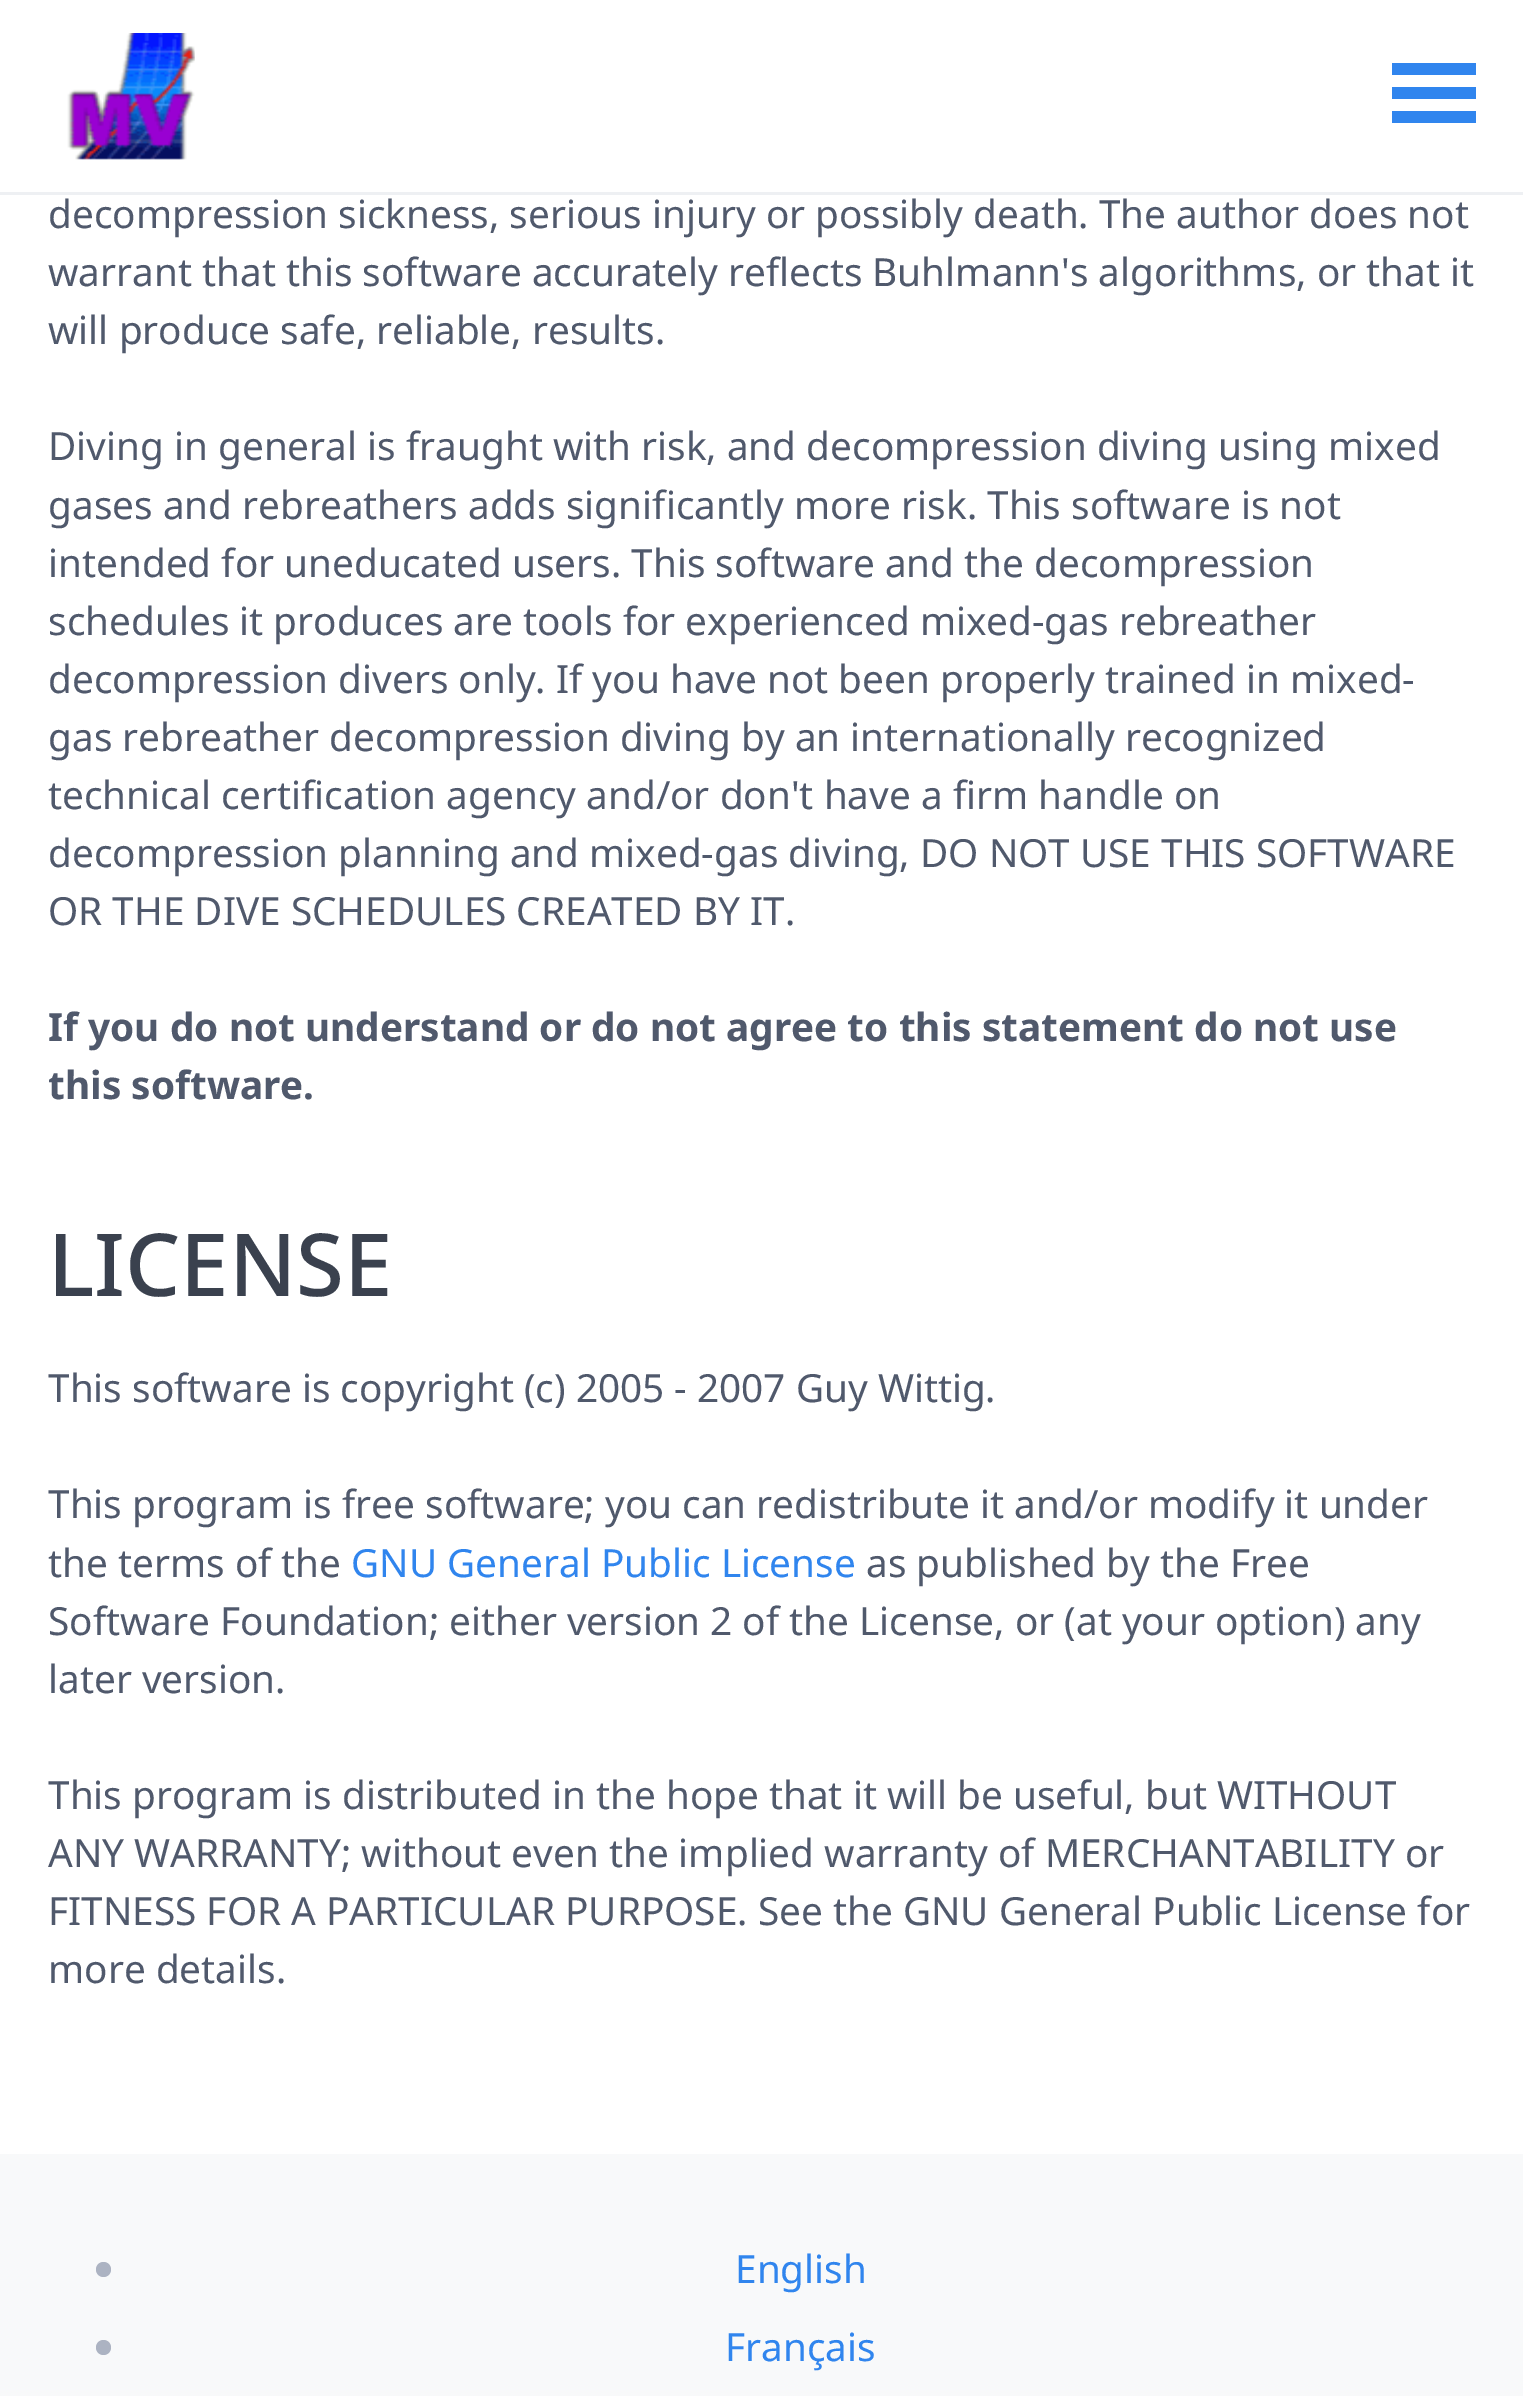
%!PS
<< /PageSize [1523 2396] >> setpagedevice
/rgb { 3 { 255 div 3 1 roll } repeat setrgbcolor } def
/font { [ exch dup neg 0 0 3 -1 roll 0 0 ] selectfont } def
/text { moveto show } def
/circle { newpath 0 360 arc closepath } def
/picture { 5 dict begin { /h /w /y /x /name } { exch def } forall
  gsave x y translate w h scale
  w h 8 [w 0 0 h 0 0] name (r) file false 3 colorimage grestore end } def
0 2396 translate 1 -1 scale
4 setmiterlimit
255 255 255 rgb
0 0 1523 2396 rectfill
238 240 243 rgb
0 192 1523 3 rectfill
(img_01.rgb) 67 33 128 127 picture
48 133 238 rgb
1392 63 84 12 rectfill
1392 87 84 12 rectfill
1392 111 84 12 rectfill
248 249 250 rgb
0 2154 1523 242 rectfill
172 179 194 rgb
103.5 2269.5 7.5 circle fill
103.5 2347.5 7.5 circle fill
/NotoSans-Regular 38.75 font
80 89 108 rgb
(decompression sickness, serious injury or possibly death. The author does not) 48 228 text
(warrant that this software accurately reflects Buhlmann's algorithms, or that it) 48 286 text
(will produce safe, reliable, results.) 48 344 text
(Diving in general is fraught with risk, and decompression diving using mixed) 48 460 text
(gases and rebreathers adds significantly more risk. This software is not) 48 519 text
(intended for uneducated users. This software and the decompression) 48 577 text
(schedules it produces are tools for experienced mixed-gas rebreather) 48 635 text
(decompression divers only. If you have not been properly trained in mixed-) 48 693 text
(gas rebreather decompression diving by an internationally recognized) 48 751 text
(technical certification agency and/or don't have a firm handle on) 48 809 text
(decompression planning and mixed-gas diving, DO NOT USE THIS SOFTWARE) 48 867 text
(OR THE DIVE SCHEDULES CREATED BY IT.) 48 925 text
/NotoSans-Bold 38.75 font
(If you do not understand or do not agree to this statement do not use) 48 1041 text
(this software.) 48 1099 text
/NotoSans-Medium 87 font
58 65 78 rgb
(LICENSE) 48 1296 text
/NotoSans-Regular 38.75 font
80 89 108 rgb
(This software is copyright \(c\) 2005 - 2007 Guy Wittig.) 48 1402 text
(This program is free software; you can redistribute it and/or modify it under) 48 1518 text
(the terms of the) 48 1577 text
48 133 238 rgb
(GNU General Public License) 351 1577 text
80 89 108 rgb
(as published by the Free) 866 1577 text
(Software Foundation; either version 2 of the License, or \(at your option\) any) 48 1635 text
(later version.) 48 1693 text
(This program is distributed in the hope that it will be useful, but WITHOUT) 48 1809 text
(ANY WARRANTY; without even the implied warranty of MERCHANTABILITY or) 48 1867 text
(FITNESS FOR A PARTICULAR PURPOSE. See the GNU General Public License for) 48 1925 text
(more details.) 48 1983 text
48 133 238 rgb
(English) 735 2283 text
(Français) 725 2361 text
showpage
